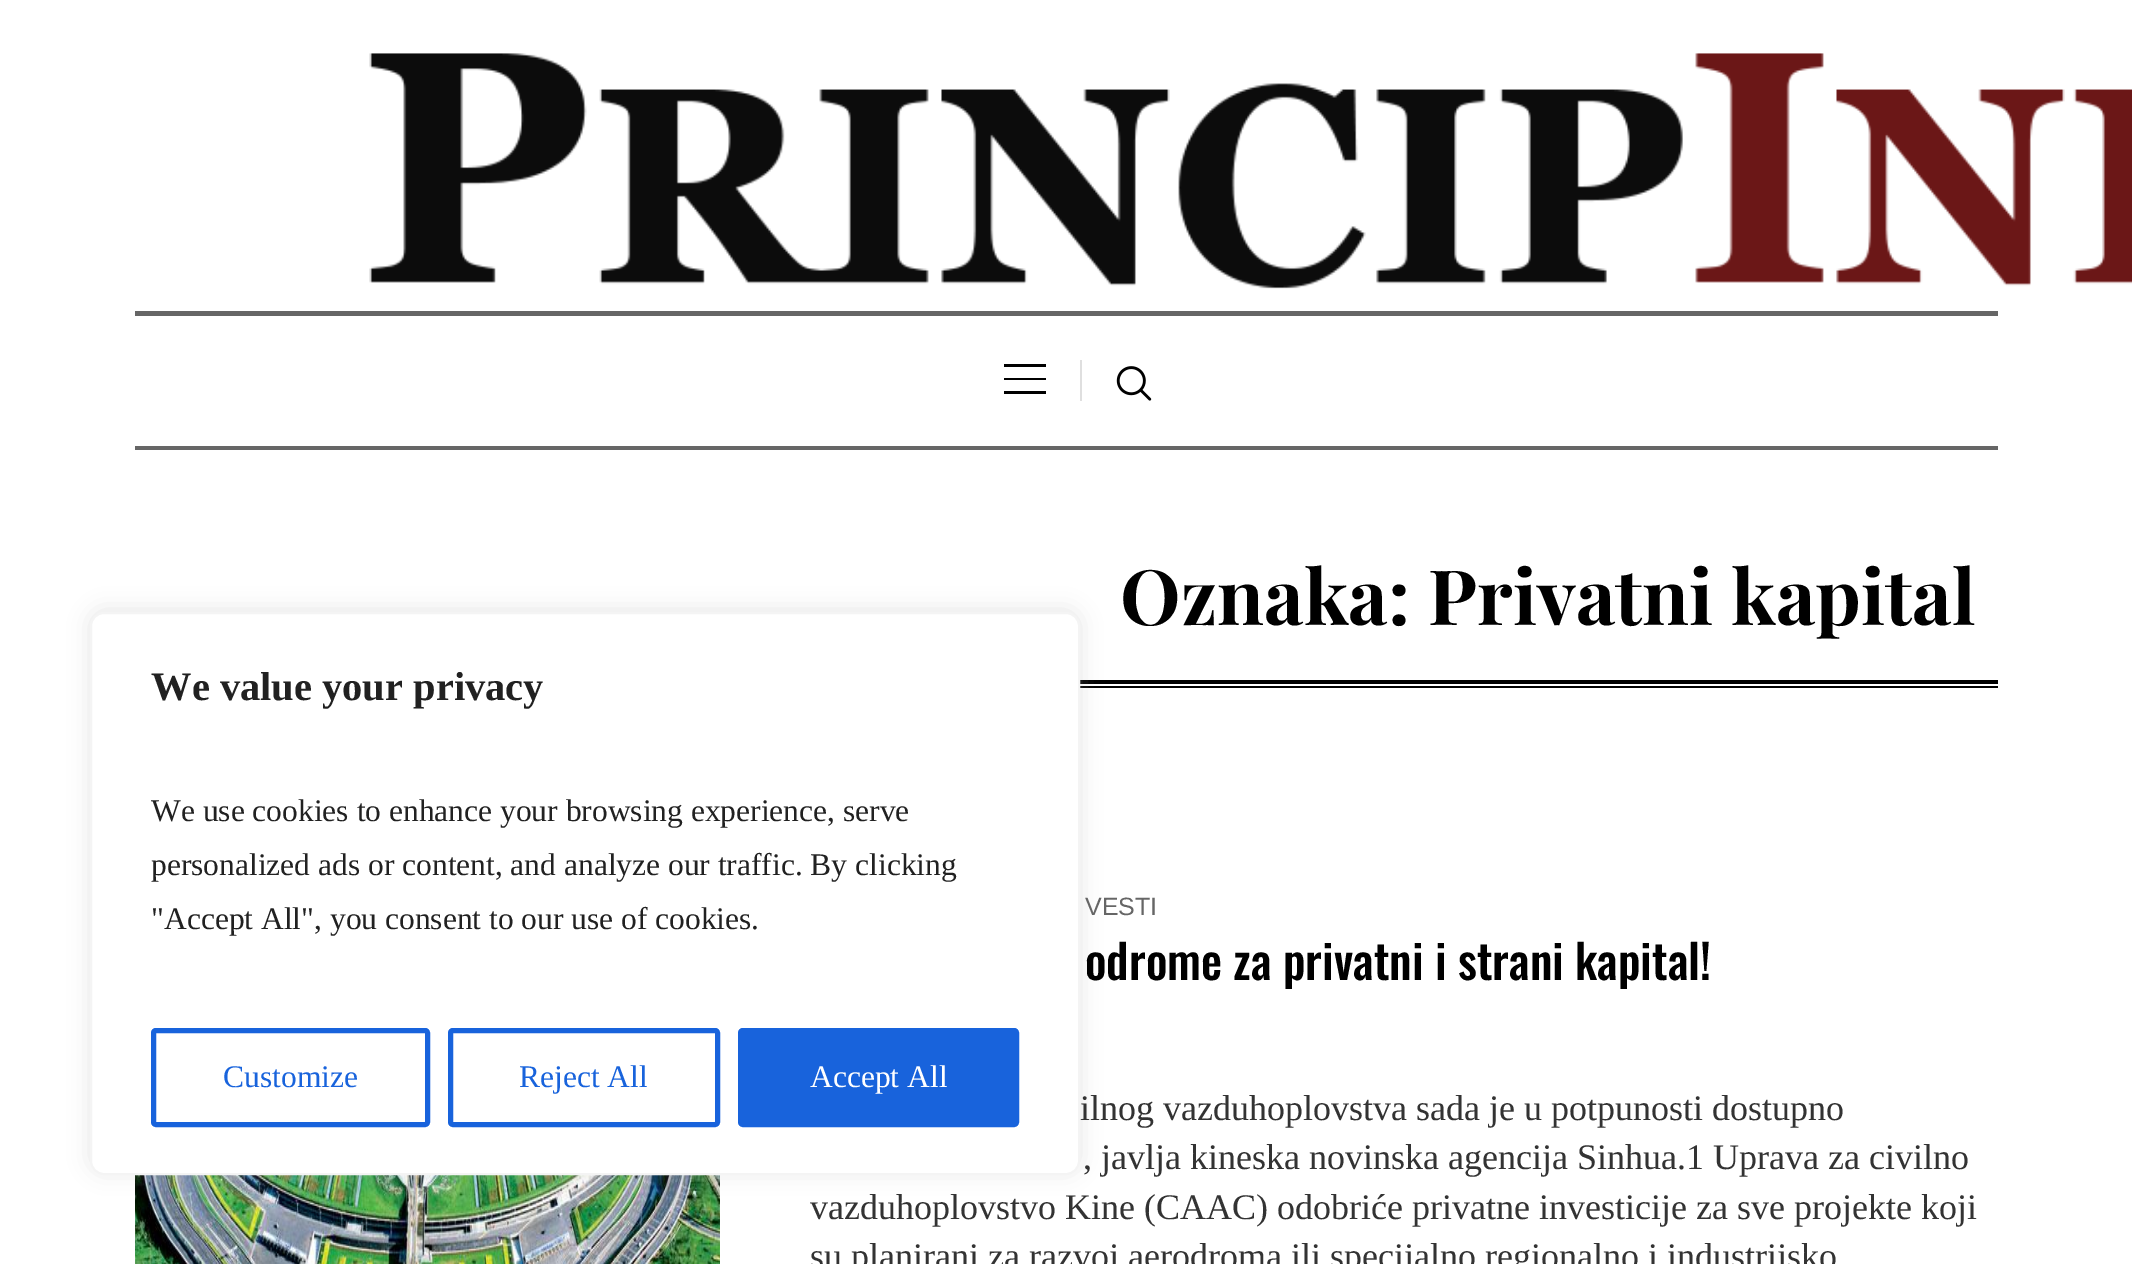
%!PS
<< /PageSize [2132 1264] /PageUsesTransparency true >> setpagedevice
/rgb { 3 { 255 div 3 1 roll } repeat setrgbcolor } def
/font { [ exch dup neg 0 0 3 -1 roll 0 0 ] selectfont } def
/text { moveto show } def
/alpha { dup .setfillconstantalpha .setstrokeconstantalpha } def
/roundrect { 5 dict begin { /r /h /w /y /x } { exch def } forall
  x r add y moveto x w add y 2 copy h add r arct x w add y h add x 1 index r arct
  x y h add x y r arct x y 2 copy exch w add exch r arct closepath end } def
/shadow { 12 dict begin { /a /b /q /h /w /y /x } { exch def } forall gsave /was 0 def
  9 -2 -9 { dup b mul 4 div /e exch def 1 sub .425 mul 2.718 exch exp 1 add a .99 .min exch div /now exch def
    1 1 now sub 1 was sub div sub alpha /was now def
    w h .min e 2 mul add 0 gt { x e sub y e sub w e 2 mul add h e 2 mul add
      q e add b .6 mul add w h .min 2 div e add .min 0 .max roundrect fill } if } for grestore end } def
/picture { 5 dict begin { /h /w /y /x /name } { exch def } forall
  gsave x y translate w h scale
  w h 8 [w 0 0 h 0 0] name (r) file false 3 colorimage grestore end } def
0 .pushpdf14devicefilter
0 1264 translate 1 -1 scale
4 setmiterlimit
255 255 255 rgb
0 0 2132 1264 rectfill
0 0 0 rgb
1080 680 918 4 rectfill
1080 686 918 2 rectfill
(img_03.rgb) 135 1175 585 89 picture
172 171 171 rgb
90 610 990 562 14 11 0.3 shadow
255 255 255 rgb
91 613 988 561 13 roundrect gsave fill grestore
244 244 244 rgb
2 setlinewidth
stroke
24 99 220 rgb
5 setlinewidth
153.5 1030.5 274 94 2.5 roundrect stroke
450.5 1030.5 267 94 2.5 roundrect stroke
740.5 1030.5 276 94 2.5 roundrect gsave fill grestore
stroke
(img_01.rgb) 369 53 1763 236 picture
102 102 102 rgb
135 311 1863 5 rectfill
135 446 1863 4 rectfill
0 0 0 rgb
1004 364 moveto 0 3 rlineto 42 0 rlineto 0 -3 rlineto closepath 1004 380 moveto 42 0 rlineto 0 -2 rlineto -42 0 rlineto closepath 1004 394 moveto 42 0 rlineto 0 -3 rlineto -42 0 rlineto closepath fill
223 223 223 rgb
1080 360 2 41 rectfill
(img_02.rgb) 1116 366 36 35 picture
/LiberationSerif-Bold 40.5 font
33 33 33 rgb
(We value your privacy) 151 700 text
/LiberationSerif-Regular 31.5 font
(We use cookies to enhance your browsing experience, serve) 151 821 text
(personalized ads or content, and analyze our traffic. By clicking) 151 875 text
("Accept All", you consent to our use of cookies.) 151 929 text
24 99 220 rgb
(Customize) 223 1087 text
(Reject All) 519 1087 text
255 255 255 rgb
(Accept All) 810 1087 text
/PlayfairDisplay-Bold 76.5 font
0 0 0 rgb
(Oznaka: Privatni kapital) 1120 625 text
/LiberationSans-Regular 25 font
102 102 102 rgb
(VESTI) 1085 915 text
/Oswald-Medium 47.25 font
0 0 0 rgb
(odrome za privatni i strani kapital!) 1085 980 text
/LiberationSerif-Regular 36 font
51 51 51 rgb
(ilnog vazduhoplovstva sada je u potpunosti dostupno) 1080 1120 text
(, javlja kineska novinska agencija Sinhua.1 Uprava za civilno) 1083 1169 text
(vazduhoplovstvo Kine \(CAAC\) odobriće privatne investicije za sve projekte koji) 810 1219 text
(su planirani za razvoj aerodroma ili specijalno regionalno i industrijsko) 810 1268 text
.poppdf14devicefilter showpage
